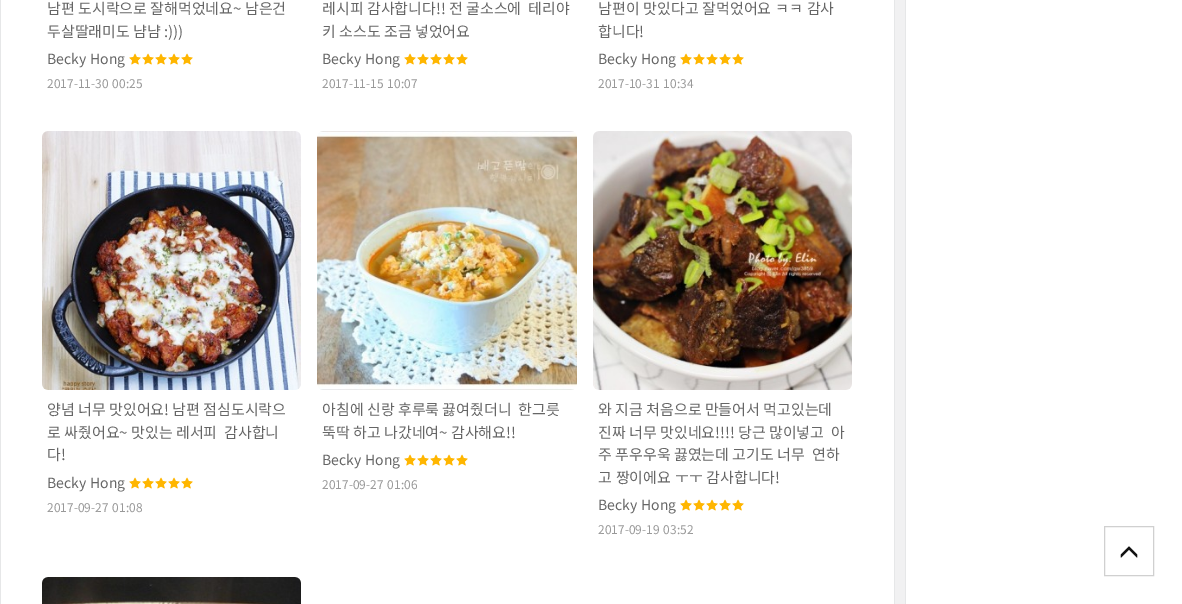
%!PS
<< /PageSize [1182 604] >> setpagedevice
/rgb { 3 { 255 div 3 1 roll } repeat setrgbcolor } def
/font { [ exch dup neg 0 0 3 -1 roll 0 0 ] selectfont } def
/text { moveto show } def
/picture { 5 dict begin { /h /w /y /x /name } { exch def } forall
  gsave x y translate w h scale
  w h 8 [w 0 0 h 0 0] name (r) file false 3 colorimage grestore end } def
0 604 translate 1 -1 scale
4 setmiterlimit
241 241 242 rgb
0 0 1182 604 rectfill
(img_01.rgb) 0 0 1182 604 picture
(img_02.rgb) 129 53 12 12 picture
(img_02.rgb) 142 53 12 12 picture
(img_02.rgb) 155 53 12 12 picture
(img_02.rgb) 168 53 12 12 picture
(img_02.rgb) 181 53 12 12 picture
(img_02.rgb) 404 53 12 12 picture
(img_02.rgb) 417 53 12 12 picture
(img_02.rgb) 430 53 12 12 picture
(img_02.rgb) 443 53 12 12 picture
(img_02.rgb) 456 53 12 12 picture
(img_02.rgb) 680 53 12 12 picture
(img_02.rgb) 693 53 12 12 picture
(img_02.rgb) 706 53 12 12 picture
(img_02.rgb) 719 53 12 12 picture
(img_02.rgb) 732 53 12 12 picture
(img_03.rgb) 42 131 259 259 picture
(img_02.rgb) 129 477 12 12 picture
(img_02.rgb) 142 477 12 12 picture
(img_02.rgb) 155 477 12 12 picture
(img_02.rgb) 168 477 12 12 picture
(img_02.rgb) 181 477 12 12 picture
(img_04.rgb) 317 131 260 259 picture
(img_05.rgb) 404 454 12 12 picture
(img_05.rgb) 417 454 12 12 picture
(img_05.rgb) 430 454 12 12 picture
(img_05.rgb) 443 454 12 12 picture
(img_05.rgb) 456 454 12 12 picture
(img_06.rgb) 593 131 259 259 picture
(img_02.rgb) 680 499 12 12 picture
(img_02.rgb) 693 499 12 12 picture
(img_02.rgb) 706 499 12 12 picture
(img_02.rgb) 719 499 12 12 picture
(img_02.rgb) 732 499 12 12 picture
(img_07.rgb) 42 577 259 27 picture
208 208 208 rgb
1104.5 526.5 49 49 rectstroke
(img_08.rgb) 1120 546 18 12 picture
/NotoSansKR-Regular 15 font
102 102 102 rgb
(남편 도시락으로 잘해먹었네요~ 남은건) 47 14 text
(두살딸래미도 냠냠 :\)\)\)) 47 37 text
/NotoSansKR-Regular 14 font
47 64 moveto 1 0 32 (Becky Hong) widthshow
/NotoSansKR-Regular 12 font
153 153 153 rgb
47 88 moveto 1 0 32 (2017-11-30 00:25) widthshow
/NotoSansKR-Regular 15 font
102 102 102 rgb
(레시피 감사합니다!! 전 굴소스에) 322 14 text
(테리야) 528 14 text
(키 소스도 조금 넣었어요) 322 37 text
/NotoSansKR-Regular 14 font
322 64 moveto 1 0 32 (Becky Hong) widthshow
/NotoSansKR-Regular 12 font
153 153 153 rgb
322 88 moveto 1 0 32 (2017-11-15 10:07) widthshow
/NotoSansKR-Regular 15 font
102 102 102 rgb
598 14 moveto 0.5 0 32 (남편이 맛있다고 잘먹었어요 ㅋㅋ 감사) widthshow
(합니다!) 598 37 text
/NotoSansKR-Regular 14 font
598 64 moveto 1 0 32 (Becky Hong) widthshow
/NotoSansKR-Regular 12 font
153 153 153 rgb
598 88 moveto 1 0 32 (2017-10-31 10:34) widthshow
/NotoSansKR-Regular 15 font
102 102 102 rgb
(양념 너무 맛있어요! 남편 점심도시락으) 47 415 text
(로 싸줬어요~ 맛있는 레서피) 47 438 text
(감사합니) 224 438 text
(다!) 47 460 text
/NotoSansKR-Regular 14 font
47 488 moveto 1 0 32 (Becky Hong) widthshow
/NotoSansKR-Regular 12 font
153 153 153 rgb
47 512 moveto 1 0 32 (2017-09-27 01:08) widthshow
/NotoSansKR-Regular 15 font
102 102 102 rgb
(아침에 신랑 후루룩 끓여줬더니) 322 415 text
(한그릇) 518 415 text
(뚝딱 하고 나갔네여~ 감사해요!!) 322 438 text
/NotoSansKR-Regular 14 font
322 465 moveto 1 0 32 (Becky Hong) widthshow
/NotoSansKR-Regular 12 font
153 153 153 rgb
322 489 moveto 1 0 32 (2017-09-27 01:06) widthshow
/NotoSansKR-Regular 15 font
102 102 102 rgb
(와 지금 처음으로 만들어서 먹고있는데) 598 415 text
(진짜 너무 맛있네요!!!! 당근 많이넣고) 598 438 text
(아) 831 438 text
(주 푸우우욱 끓였는데 고기도 너무) 598 460 text
(연하) 812 460 text
598 483 moveto 0.5 0 32 (고 짱이에요 ㅜㅜ 감사합니다!) widthshow
/NotoSansKR-Regular 14 font
598 510 moveto 1 0 32 (Becky Hong) widthshow
/NotoSansKR-Regular 12 font
153 153 153 rgb
598 534 moveto 1 0 32 (2017-09-19 03:52) widthshow
showpage
